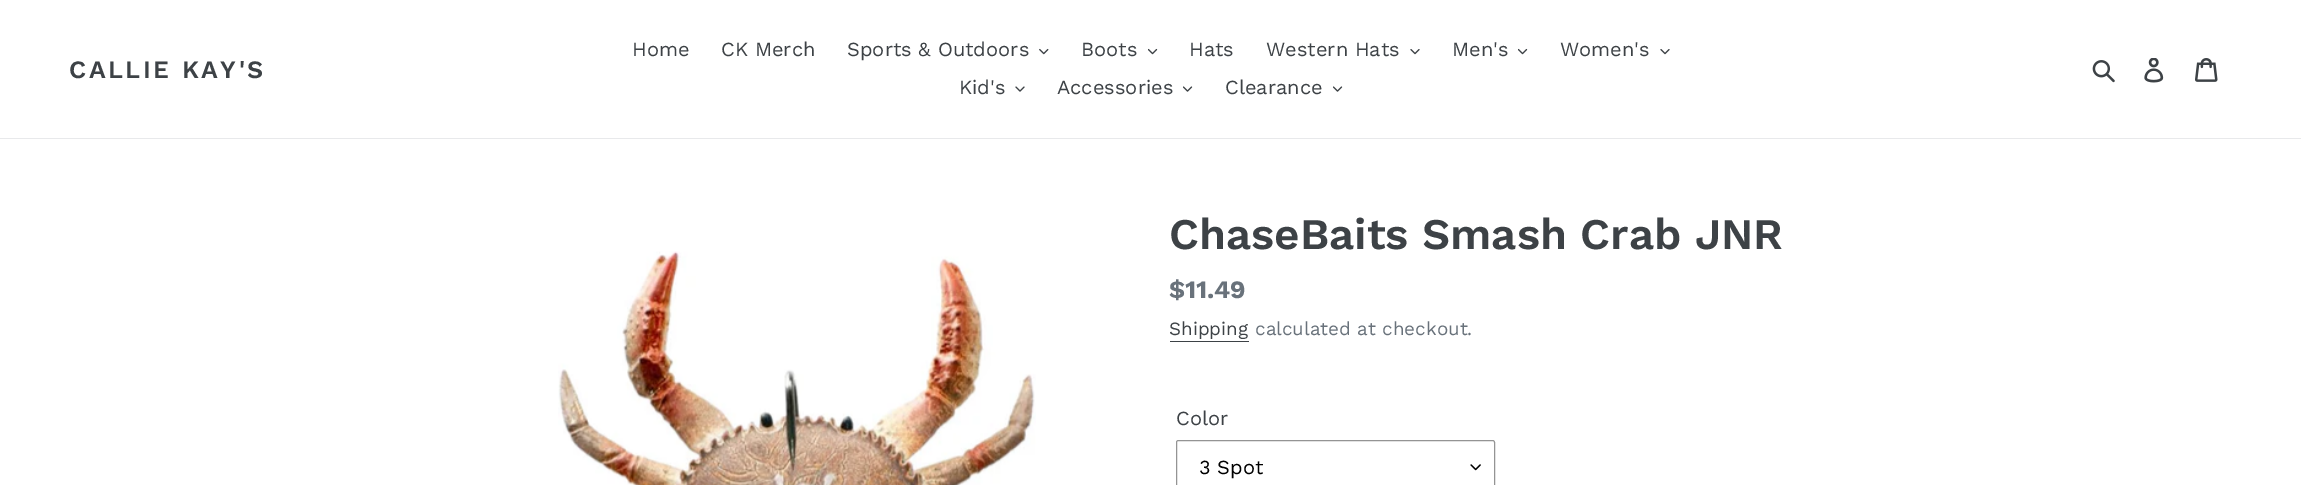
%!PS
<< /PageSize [2301 485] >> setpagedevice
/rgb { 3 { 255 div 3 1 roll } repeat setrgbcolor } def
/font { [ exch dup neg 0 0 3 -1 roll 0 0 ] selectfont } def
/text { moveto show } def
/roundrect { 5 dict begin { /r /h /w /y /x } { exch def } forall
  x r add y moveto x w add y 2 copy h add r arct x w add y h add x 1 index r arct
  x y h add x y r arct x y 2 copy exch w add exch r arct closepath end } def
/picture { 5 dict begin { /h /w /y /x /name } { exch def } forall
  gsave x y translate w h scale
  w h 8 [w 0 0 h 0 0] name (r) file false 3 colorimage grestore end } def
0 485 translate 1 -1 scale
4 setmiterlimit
255 255 255 rgb
0 0 2301 485 rectfill
232 233 235 rgb
0 138 2301 1 rectfill
(img_01.rgb) 1039 48 10 7 picture
(img_02.rgb) 1148 48 10 7 picture
(img_03.rgb) 1410 49 10 6 picture
(img_02.rgb) 1518 48 10 7 picture
(img_03.rgb) 1660 49 10 6 picture
(img_04.rgb) 1015 86 10 6 picture
(img_05.rgb) 1183 86 10 6 picture
(img_05.rgb) 1333 86 10 6 picture
(img_06.rgb) 2092 60 23 23 picture
(img_07.rgb) 2144 58 20 25 picture
(img_08.rgb) 2195 58 23 24 picture
(img_09.rgb) 558 251 478 234 picture
61 66 70 rgb
1170 341 79 1 rectfill
(img_10.rgb) 1470 464 11 7 picture
148 148 148 rgb
1176.5 440.5 318 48 2 roundrect stroke
/WorkSans-SemiBold 25 font
61 66 70 rgb
69 78 moveto 2.5 0 (CALLIE KAY'S) ashow
/WorkSans-Regular 20 font
(Home) 632 56 text
(CK Merch) 721 56 text
(Sports & Outdoors) 847 56 text
(Boots) 1081 56 text
(Hats) 1189 56 text
(Western Hats) 1266 56 text
(Men's) 1452 56 text
(Women's) 1560 56 text
(Kid's) 959 94 text
(Accessories) 1057 94 text
(Clearance) 1225 94 text
/WorkSans-SemiBold 43.75 font
(ChaseBaits Smash Crab JNR) 1169 249 text
/WorkSans-Bold 25 font
105 114 123 rgb
($11.49) 1169 298 text
/WorkSans-Regular 18.75 font
61 66 70 rgb
(Shipping) 1169 335 text
105 114 123 rgb
(calculated at checkout.) 1255 335 text
/WorkSans-Regular 20 font
61 66 70 rgb
(Color) 1176 425 text
0 0 0 rgb
(3 Spot) 1199 474 text
showpage
